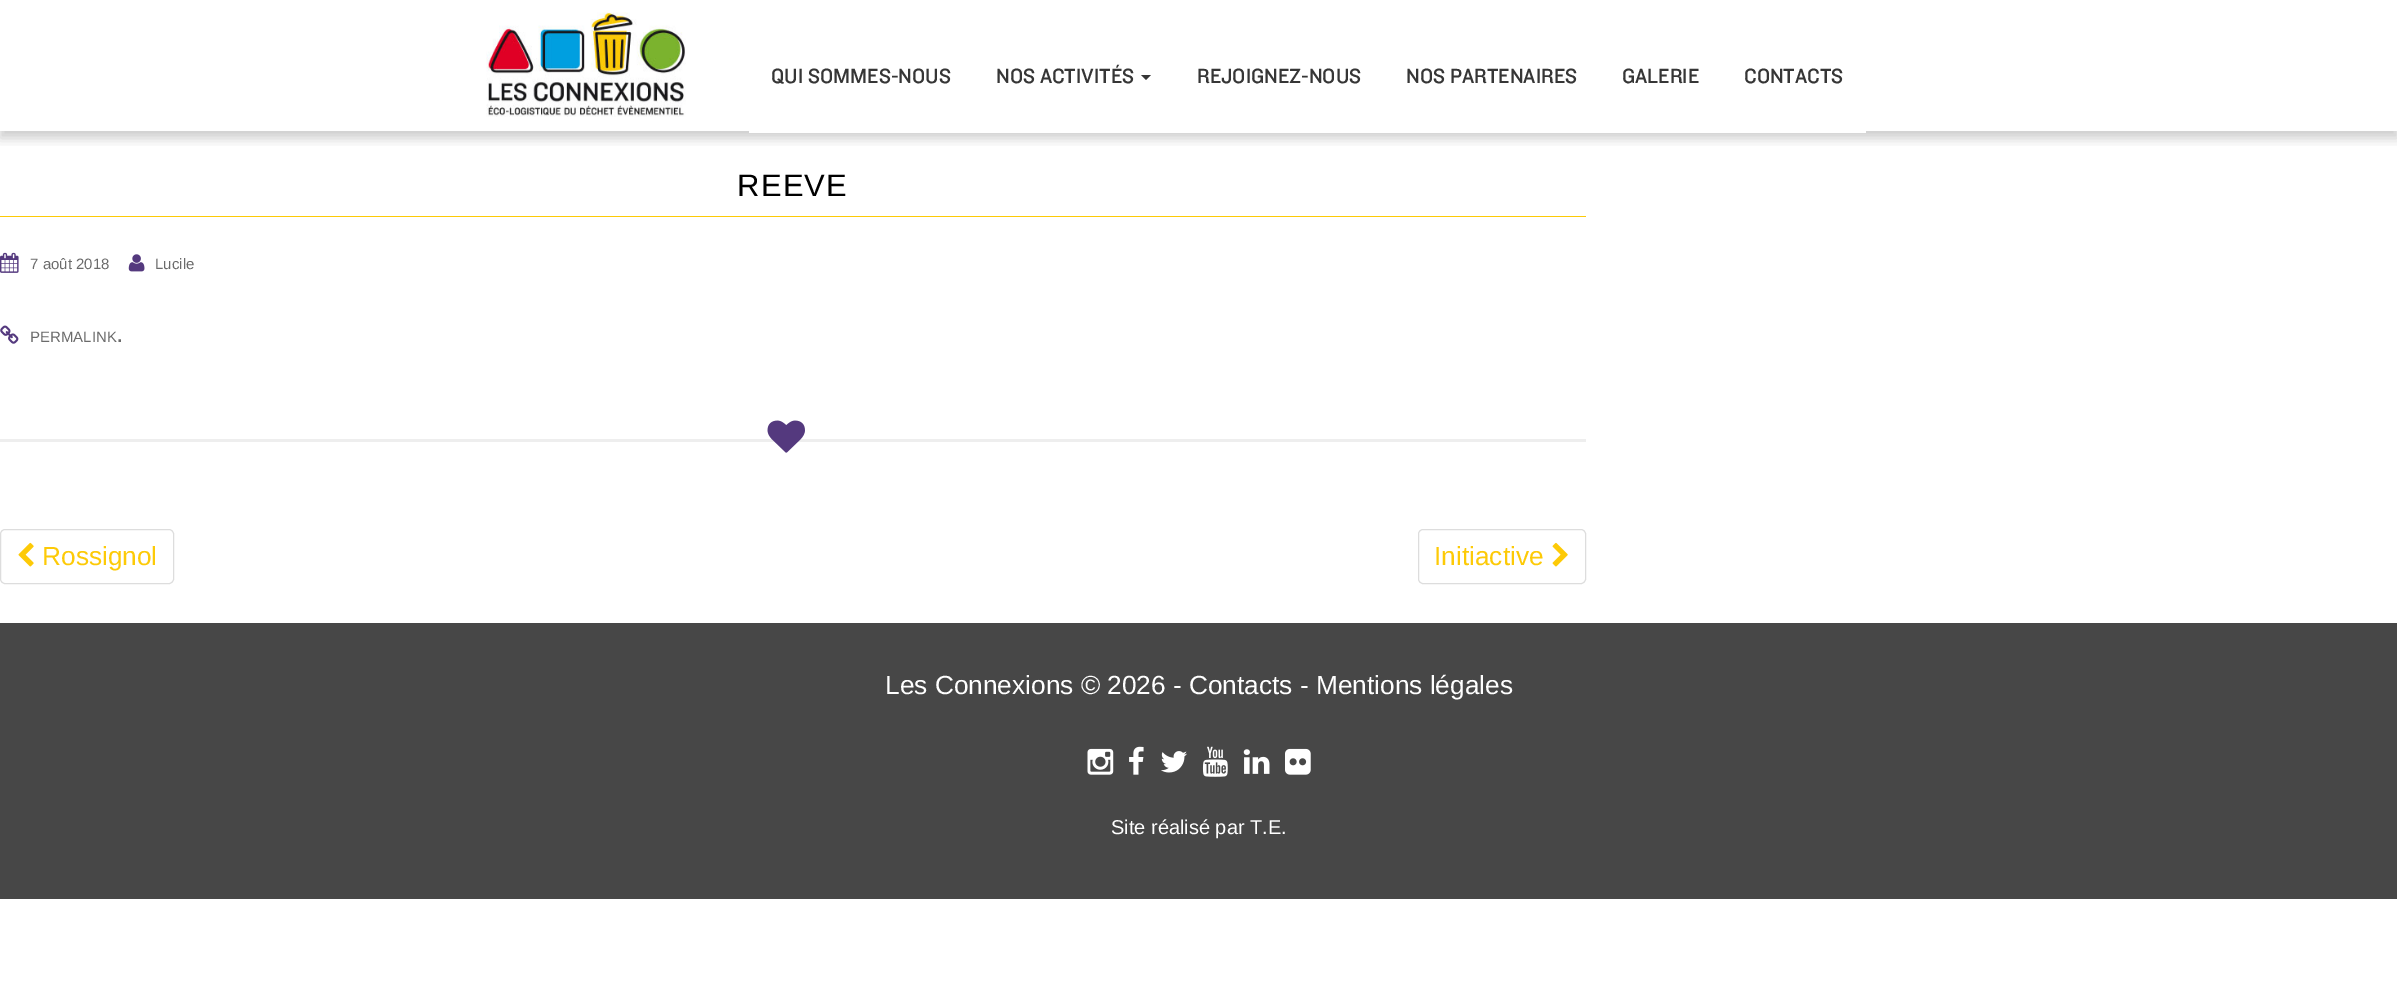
%!PS
<< /PageSize [2397 1004] /PageUsesTransparency true >> setpagedevice
/rgb { 3 { 255 div 3 1 roll } repeat setrgbcolor } def
/font { [ exch dup neg 0 0 3 -1 roll 0 0 ] selectfont } def
/text { moveto show } def
/alpha { dup .setfillconstantalpha .setstrokeconstantalpha } def
/roundrect { 5 dict begin { /r /h /w /y /x } { exch def } forall
  x r add y moveto x w add y 2 copy h add r arct x w add y h add x 1 index r arct
  x y h add x y r arct x y 2 copy exch w add exch r arct closepath end } def
/shadow { 12 dict begin { /a /b /q /h /w /y /x } { exch def } forall gsave /was 0 def
  9 -2 -9 { dup b mul 4 div /e exch def 1 sub .425 mul 2.718 exch exp 1 add a .99 .min exch div /now exch def
    1 1 now sub 1 was sub div sub alpha /was now def
    w h .min e 2 mul add 0 gt { x e sub y e sub w e 2 mul add h e 2 mul add
      q e add b .6 mul add w h .min 2 div e add .min 0 .max roundrect fill } if } for grestore end } def
/picture { 5 dict begin { /h /w /y /x /name } { exch def } forall
  gsave x y translate w h scale
  w h 8 [w 0 0 h 0 0] name (r) file false 3 colorimage grestore end } def
0 .pushpdf14devicefilter
0 1004 translate 1 -1 scale
4 setmiterlimit
255 255 255 rgb
0 0 2397 1004 rectfill
gsave
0 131 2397 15 rectclip
0 0 0 rgb
0 6 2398 132 0 6 0.2 shadow
grestore
(img_01.rgb) 486 12 200 105 picture
749 131 1117 2 rectfill
54 54 54 rgb
1141 75 moveto 10 0 rlineto -5 5 rlineto closepath fill
253 202 7 rgb
0 216 1586 1 rectfill
(img_02.rgb) 0 252 19 21 picture
(img_03.rgb) 128 254 17 18 picture
(img_04.rgb) 0 325 19 19 picture
238 238 238 rgb
0 439 1586 3 rectfill
(img_05.rgb) 767 420 38 33 picture
221 221 221 rgb
0.5 529.5 173 54 4.5 roundrect stroke
(img_06.rgb) 18 542 16 25 picture
1418.5 529.5 167 54 4.5 roundrect stroke
(img_07.rgb) 1552 542 16 25 picture
71 71 71 rgb
0 623 2397 276 rectfill
(img_08.rgb) 1087 748 27 27 picture
(img_09.rgb) 1129 746 15 29 picture
(img_10.rgb) 1161 751 26 22 picture
(img_11.rgb) 1202 746 26 31 picture
(img_12.rgb) 1243 749 27 25 picture
(img_13.rgb) 1285 748 26 27 picture
/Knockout-Light 21.25 font
54 54 54 rgb
(QUI SOMMES-NOUS) 771 83 text
(NOS ACTIVITÉS) 996 83 text
(REJOIGNEZ-NOUS) 1197 83 text
(NOS PARTENAIRES) 1406 83 text
(GALERIE) 1622 83 text
(CONTACTS) 1744 83 text
/LiberationSans-Regular 31 font
0 0 0 rgb
737 196 moveto 1.25 0 (REEVE) ashow
/LiberationSans-Regular 15 font
107 107 107 rgb
(7 août 2018) 30 269 text
(Lucile) 155 269 text
(PERMALINK) 30 342 text
/LiberationSans-Regular 26.25 font
(.) 116 342 text
253 202 7 rgb
(Rossignol) 42 565 text
(Initiactive) 1434 565 text
255 255 255 rgb
(Les Connexions © 2026 - Contacts - Mentions légales) 885 694 text
/LiberationSans-Regular 20 font
(Site réalisé par T.E.) 1111 834 text
.poppdf14devicefilter showpage
